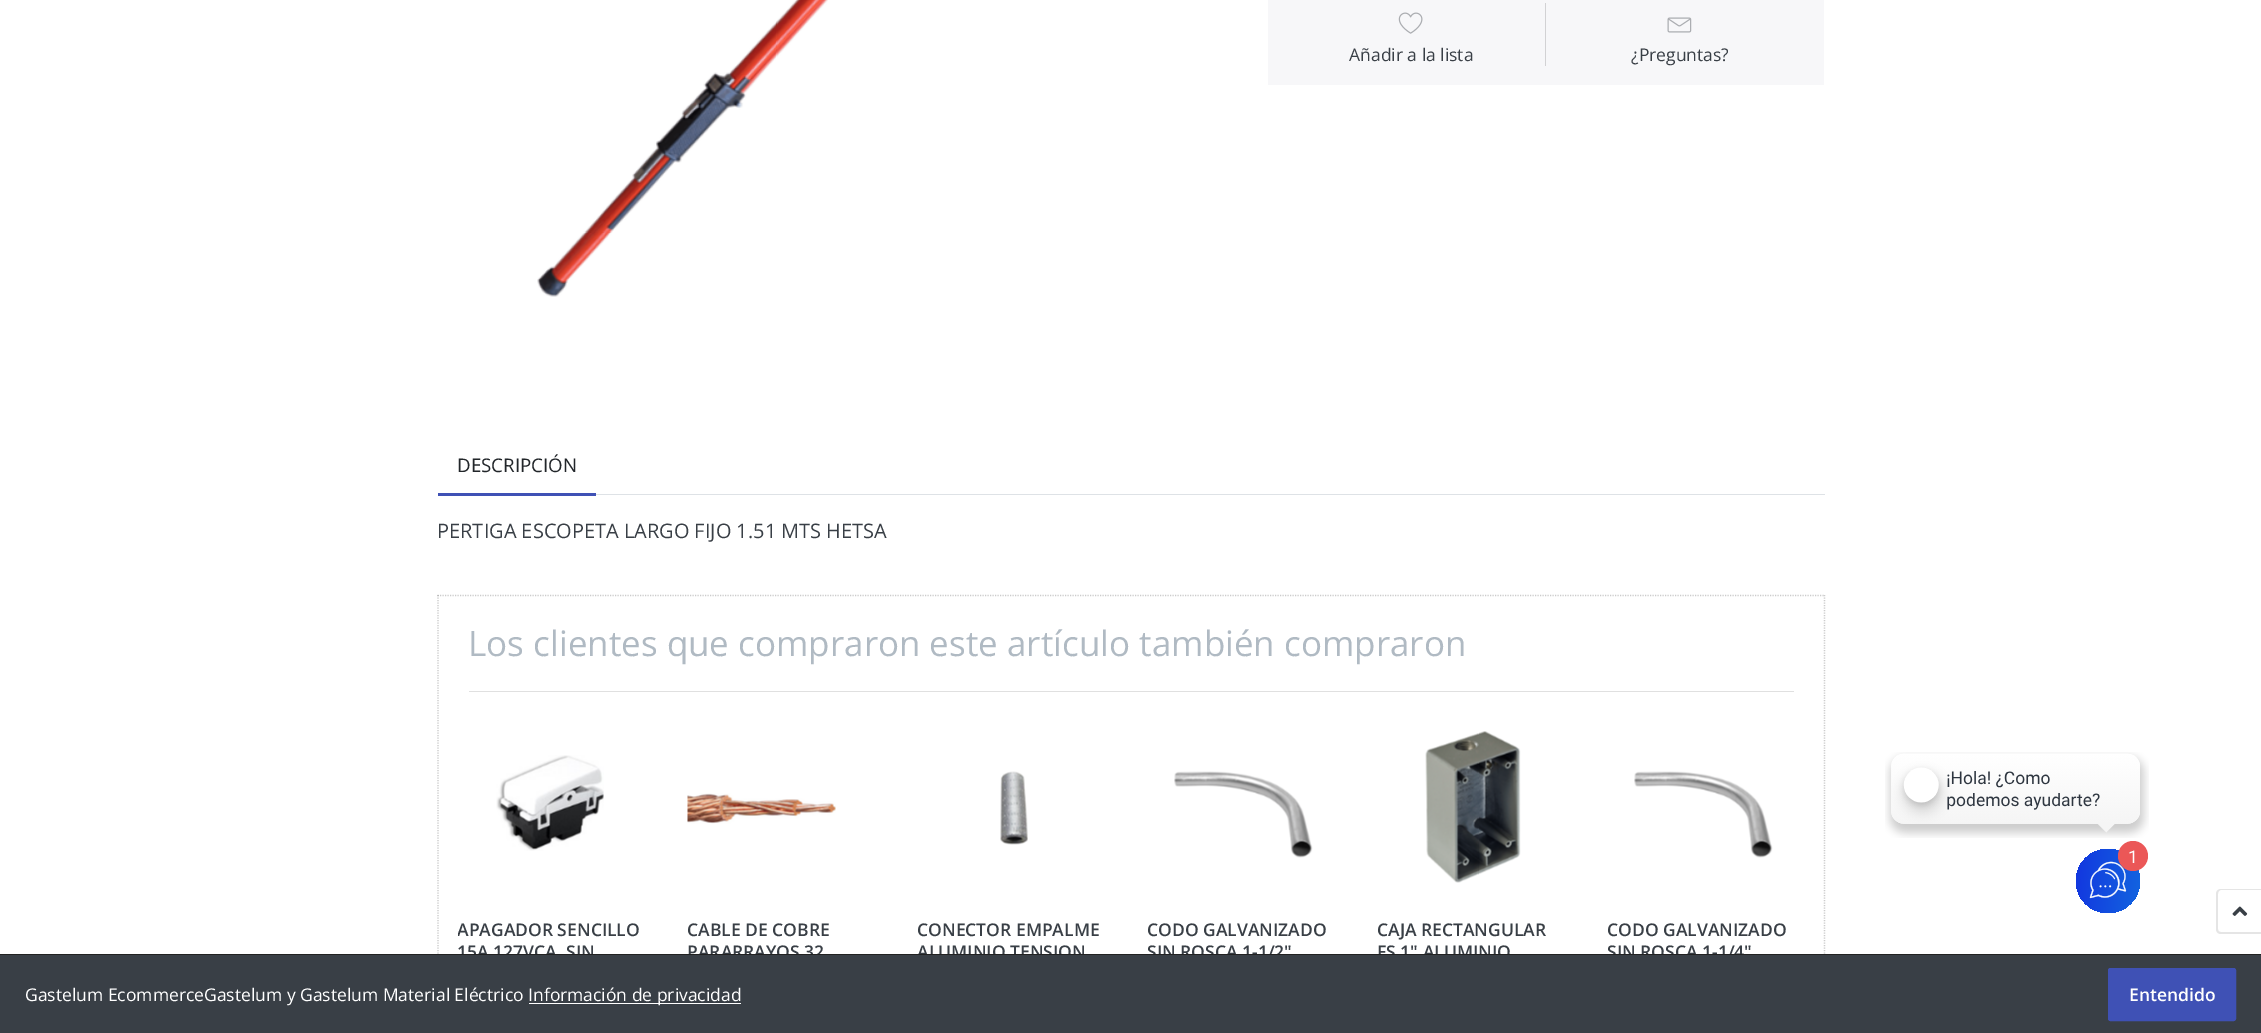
%!PS
<< /PageSize [2261 1033] /PageUsesTransparency true >> setpagedevice
/rgb { 3 { 255 div 3 1 roll } repeat setrgbcolor } def
/font { [ exch dup neg 0 0 3 -1 roll 0 0 ] selectfont } def
/text { moveto show } def
/alpha { dup .setfillconstantalpha .setstrokeconstantalpha } def
/circle { newpath 0 360 arc closepath } def
/roundrect { 5 dict begin { /r /h /w /y /x } { exch def } forall
  x r add y moveto x w add y 2 copy h add r arct x w add y h add x 1 index r arct
  x y h add x y r arct x y 2 copy exch w add exch r arct closepath end } def
/picture { 5 dict begin { /h /w /y /x /name } { exch def } forall
  gsave x y translate w h scale
  w h 8 [w 0 0 h 0 0] name (r) file false 3 colorimage grestore end } def
0 .pushpdf14devicefilter
0 1033 translate 1 -1 scale
4 setmiterlimit
255 255 255 rgb
0 0 2261 1033 rectfill
(img_01.rgb) 537 0 291 297 picture
247 247 249 rgb
1268 0 556 85 rectfill
210 210 212 rgb
1545 3 1 63 rectfill
(img_02.rgb) 1398 12 25 22 picture
(img_03.rgb) 1667 17 25 16 picture
222 226 230 rgb
596 494 1229 1 rectfill
63 81 181 rgb
438 493 158 3 rectfill
204 204 204 rgb
1.2 setlinewidth
[1.25 1.25] 0 setdash
437.5 595.5 moveto 1387.5 0 rlineto stroke
1824.5 595 moveto 0 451 rlineto stroke
0.2 alpha
0 0 0 rgb
438 595 moveto 0 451 rlineto stroke
1 alpha
224 224 224 rgb
469 691 1325 1 rectfill
(img_04.rgb) 496 755 108 96 picture
(img_05.rgb) 687 793 149 31 picture
(img_06.rgb) 1000 771 28 74 picture
(img_07.rgb) 1174 771 139 87 picture
(img_08.rgb) 1425 731 96 152 picture
(img_09.rgb) 1634 771 139 87 picture
229 229 229 rgb
2221 889 moveto 40 0 rlineto 0 45 rlineto -40 0 rlineto -3 0 -5 -2 -5 -5 rcurveto 0 -35 rlineto 0 -3 2 -5 5 -5 rcurveto closepath 2221 890 moveto 40 0 rlineto 0 42 rlineto -40 0 rlineto -2 0 -3 -1 -3 -3 rcurveto 0 -35 rlineto 0 -2 1 -4 3 -4 rcurveto closepath eofill
(img_10.rgb) 2232 906 16 10 picture
gsave 2108 881 32 circle clip newpath
<< /ShadingType 2 /ColorSpace /DeviceRGB /Coords [2074 878 2142 883] /Extend [true true] /Function << /FunctionType 3 /Domain [0 1] /Functions [<< /FunctionType 2 /Domain [0 1] /C0 [0.071 0.216 0.875] /C1 [0.071 0.216 0.875] /N 1 >> << /FunctionType 2 /Domain [0 1] /C0 [0.071 0.216 0.875] /C1 [0.071 0.392 0.875] /N 1 >>] /Bounds [0.01] /Encode [0 1 0 1] >> >> shfill grestore
(img_11.rgb) 1885 752 264 86 picture
(img_12.rgb) 2089 861 38 38 picture
235 87 87 rgb
2133 856 15 circle fill
57 63 70 rgb
0 955 2261 78 rectfill
255 255 255 rgb
529 1003 212 1 rectfill
63 81 181 rgb
2108.5 968.5 127 52 2 roundrect gsave fill grestore
1 setlinewidth
[] 0 setdash
stroke
/OpenSans-Regular 17.5 font
57 63 70 rgb
(Añadir a la lista) 1349 61 text
(¿Preguntas?) 1631 61 text
/OpenSans-Regular 18.75 font
34 38 42 rgb
(DESCRIPCIÓN) 457 472 text
/OpenSans-Regular 20 font
57 63 70 rgb
(PERTIGA ESCOPETA LARGO FIJO 1.51 MTS HETSA) 437 538 text
/OpenSans-Regular 35 font
176 186 195 rgb
(Los clientes que compraron este artículo también compraron) 468 656 text
gsave
458 919 191 45 rectclip
/OpenSans-SemiBold 17.5 font
57 63 70 rgb
(APAGADOR SENCILLO) 457 936 text
grestore
/OpenSans-SemiBold 17.5 font
57 63 70 rgb
(15A 127VCA, SIN) 457 958 text
(CABLE DE COBRE) 687 936 text
(PARARRAYOS 32) 687 958 text
(CONECTOR EMPALME) 917 936 text
(ALUMINIO TENSION) 917 958 text
(CODO GALVANIZADO) 1147 936 text
(SIN ROSCA 1-1/2") 1147 958 text
(CAJA RECTANGULAR) 1377 936 text
(FS 1" ALUMINIO) 1377 958 text
(CODO GALVANIZADO) 1607 936 text
(SIN ROSCA 1-1/4") 1607 958 text
/Roboto-Regular 17.5 font
255 255 255 rgb
(1) 2128 863 text
34 34 34 rgb
0 954 2261 1 rectfill
/OpenSans-Regular 17.5 font
255 255 255 rgb
(Gastelum EcommerceGastelum y Gastelum Material Eléctrico) 25 1001 text
(Información de privacidad) 528 1001 text
/OpenSans-SemiBold 17.5 font
(Entendido) 2129 1001 text
.poppdf14devicefilter showpage
